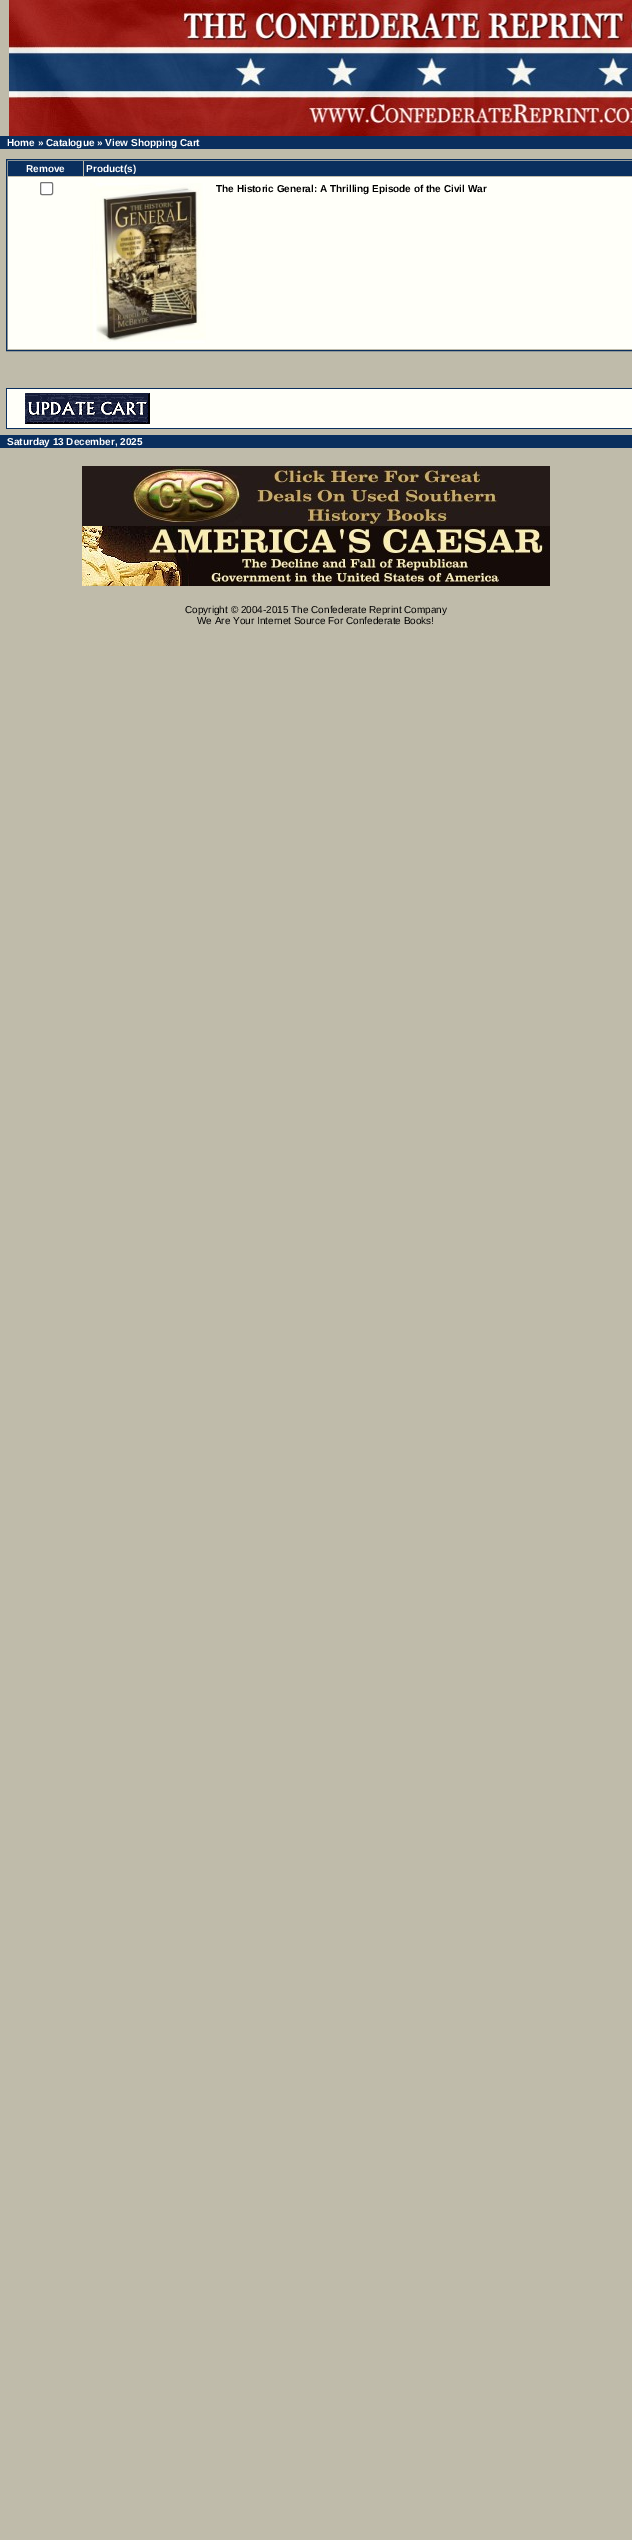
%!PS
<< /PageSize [632 2540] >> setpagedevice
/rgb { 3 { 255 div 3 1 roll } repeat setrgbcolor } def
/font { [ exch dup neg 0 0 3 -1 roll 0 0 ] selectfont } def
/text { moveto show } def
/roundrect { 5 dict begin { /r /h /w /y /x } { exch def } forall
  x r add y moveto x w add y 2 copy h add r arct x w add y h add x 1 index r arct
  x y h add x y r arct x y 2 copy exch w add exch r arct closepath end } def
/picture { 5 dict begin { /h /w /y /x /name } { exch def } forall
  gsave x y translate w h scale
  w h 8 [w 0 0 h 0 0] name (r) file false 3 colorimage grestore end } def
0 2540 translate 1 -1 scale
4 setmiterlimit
191 187 170 rgb
0 0 632 2540 rectfill
(img_01.rgb) 9 0 623 136 picture
10 47 94 rgb
0 136 632 13 rectfill
6.5 159.5 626 191 rectstroke
8 161 75 15 rectfill
84 161 548 15 rectfill
255 255 249 rgb
8 177 624 172 rectfill
255 255 255 rgb
40.5 182.5 12 12 1.5 roundrect gsave fill grestore
118 118 118 rgb
stroke
(img_02.rgb) 90 183 116 160 picture
10 47 94 rgb
6 388 626 41 rectfill
255 255 249 rgb
7 389 625 39 rectfill
(img_03.rgb) 25 393 125 31 picture
10 47 94 rgb
0 435 632 13 rectfill
(img_04.rgb) 82 466 468 60 picture
(img_05.rgb) 82 526 468 60 picture
/LiberationSans-Bold 10 font
255 255 255 rgb
(Home » Catalogue » View Shopping Cart) 7 146 text
(Remove) 26 172 text
(Product\(s\)) 86 172 text
0 0 0 rgb
(The Historic General: A Thrilling Episode of the Civil War) 216 192 text
255 255 255 rgb
(Saturday 13 December, 2025) 7 445 text
/LiberationSans-Regular 10 font
0 0 0 rgb
(Copyright © 2004-2015 The Confederate Reprint Company) 185 613 text
(We Are Your Internet Source For Confederate Books!) 197 624 text
showpage
